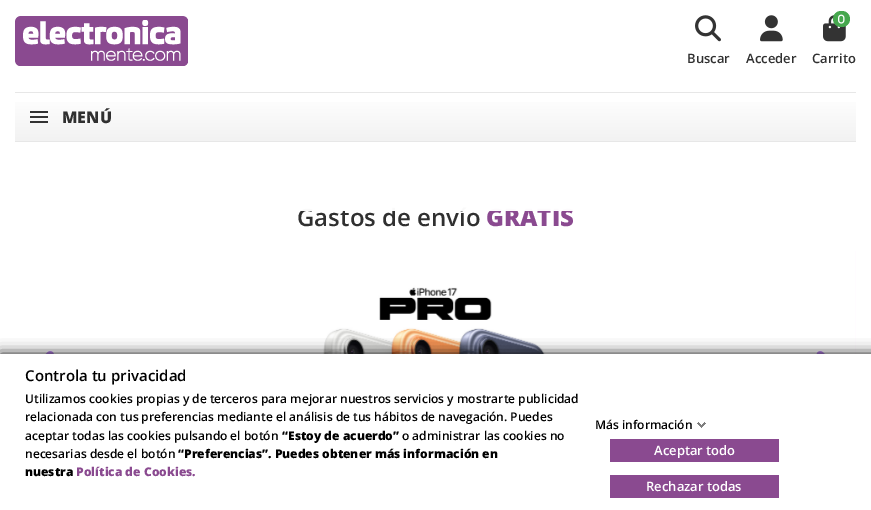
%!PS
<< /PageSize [871 510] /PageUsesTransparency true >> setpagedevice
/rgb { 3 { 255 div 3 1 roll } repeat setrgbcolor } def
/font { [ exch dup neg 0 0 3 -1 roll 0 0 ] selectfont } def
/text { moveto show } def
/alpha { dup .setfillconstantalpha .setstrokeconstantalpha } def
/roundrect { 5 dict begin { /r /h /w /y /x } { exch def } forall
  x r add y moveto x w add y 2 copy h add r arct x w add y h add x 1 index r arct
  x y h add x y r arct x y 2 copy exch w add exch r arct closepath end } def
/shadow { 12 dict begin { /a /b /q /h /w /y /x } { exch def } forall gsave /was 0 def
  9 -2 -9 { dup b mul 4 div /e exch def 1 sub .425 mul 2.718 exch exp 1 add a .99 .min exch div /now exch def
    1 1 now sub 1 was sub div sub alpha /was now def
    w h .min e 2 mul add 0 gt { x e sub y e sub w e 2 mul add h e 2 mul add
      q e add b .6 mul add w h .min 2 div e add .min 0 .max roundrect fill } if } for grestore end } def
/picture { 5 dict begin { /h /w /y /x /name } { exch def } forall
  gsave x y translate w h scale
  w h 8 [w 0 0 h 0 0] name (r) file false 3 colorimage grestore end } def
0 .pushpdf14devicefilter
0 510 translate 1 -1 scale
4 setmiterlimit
255 255 255 rgb
0 0 871 510 rectfill
(img_01.rgb) 15 16 173 50 picture
(img_02.rgb) 695 15 26 27 picture
(img_03.rgb) 760 15 23 27 picture
(img_05.rgb) 823 15 23 27 picture
70 167 78 rgb
833 11 17 16 8 roundrect fill
(img_04.rgb) 838 14 7 10 picture
gsave 15 102 moveto 841 0 rlineto 0 39 rlineto -841 0 rlineto closepath clip newpath
<< /ShadingType 2 /ColorSpace /DeviceRGB /Coords [436 93 436 141] /Extend [true true] /Function << /FunctionType 2 /Domain [0 1] /C0 [1 1 1] /C1 [0.949 0.949 0.949] /N 1 >> >> shfill grestore
231 231 231 rgb
15 92 841 1 rectfill
15 141 841 1 rectfill
51 51 51 rgb
30 111 18 2 rectfill
30 116 18 2 rectfill
30 121 18 2 rectfill
(img_06.rgb) 15 251 841 103 picture
(img_07.rgb) 45 351 9 3 picture
(img_08.rgb) 816 351 9 3 picture
18 18 18 rgb
0 354 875 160 0 7 1 shadow
255 255 255 rgb
0 354 871 156 rectfill
(img_09.rgb) 697 422 9 6 picture
138 74 144 rgb
610 439 169 23 rectfill
610 475 169 23 rectfill
/OpenSans-SemiBold 13 font
48 48 48 rgb
(Buscar) 687 63 text
(Acceder) 746 63 text
(Carrito) 812 63 text
/OpenSans-ExtraBold 16 font
(MENÚ) 62 123 text
/OpenSans-SemiBold 24 font
(Gastos de envío) 297 226 text
/OpenSans-ExtraBold 24 font
138 74 144 rgb
(GRATIS) 486 226 text
0.89 alpha
255 255 255 rgb
300 207 274 4 rectfill
0.76 alpha
301 207 272 4 rectfill
/OpenSans-SemiBold 15 font
1 alpha
0 0 0 rgb
(Controla tu privacidad) 25 381 text
/OpenSans-SemiBold 12 font
(Utilizamos cookies propias y de terceros para mejorar nuestros servicios y mostrarte publicidad) 25 403 text
(relacionada con tus preferencias mediante el análisis de tus hábitos de navegación. Puedes) 25 421 text
(aceptar todas las cookies pulsando el botón) 25 440 text
/OpenSans-ExtraBold 12 font
(“Estoy de acuerdo”) 282 440 text
/OpenSans-SemiBold 12 font
(o administrar las cookies no) 402 440 text
(necesarias desde el botón) 25 458 text
/OpenSans-ExtraBold 12 font
(“Preferencias”. Puedes obtener más información en) 178 458 text
(nuestra) 25 476 text
138 74 144 rgb
(Política de Cookies.) 76 476 text
/OpenSans-SemiBold 12 font
0 0 0 rgb
(Más información) 595 429 text
/OpenSans-SemiBold 13 font
255 255 255 rgb
(Aceptar todo) 654 455 text
(Rechazar todas) 646 491 text
.poppdf14devicefilter showpage
